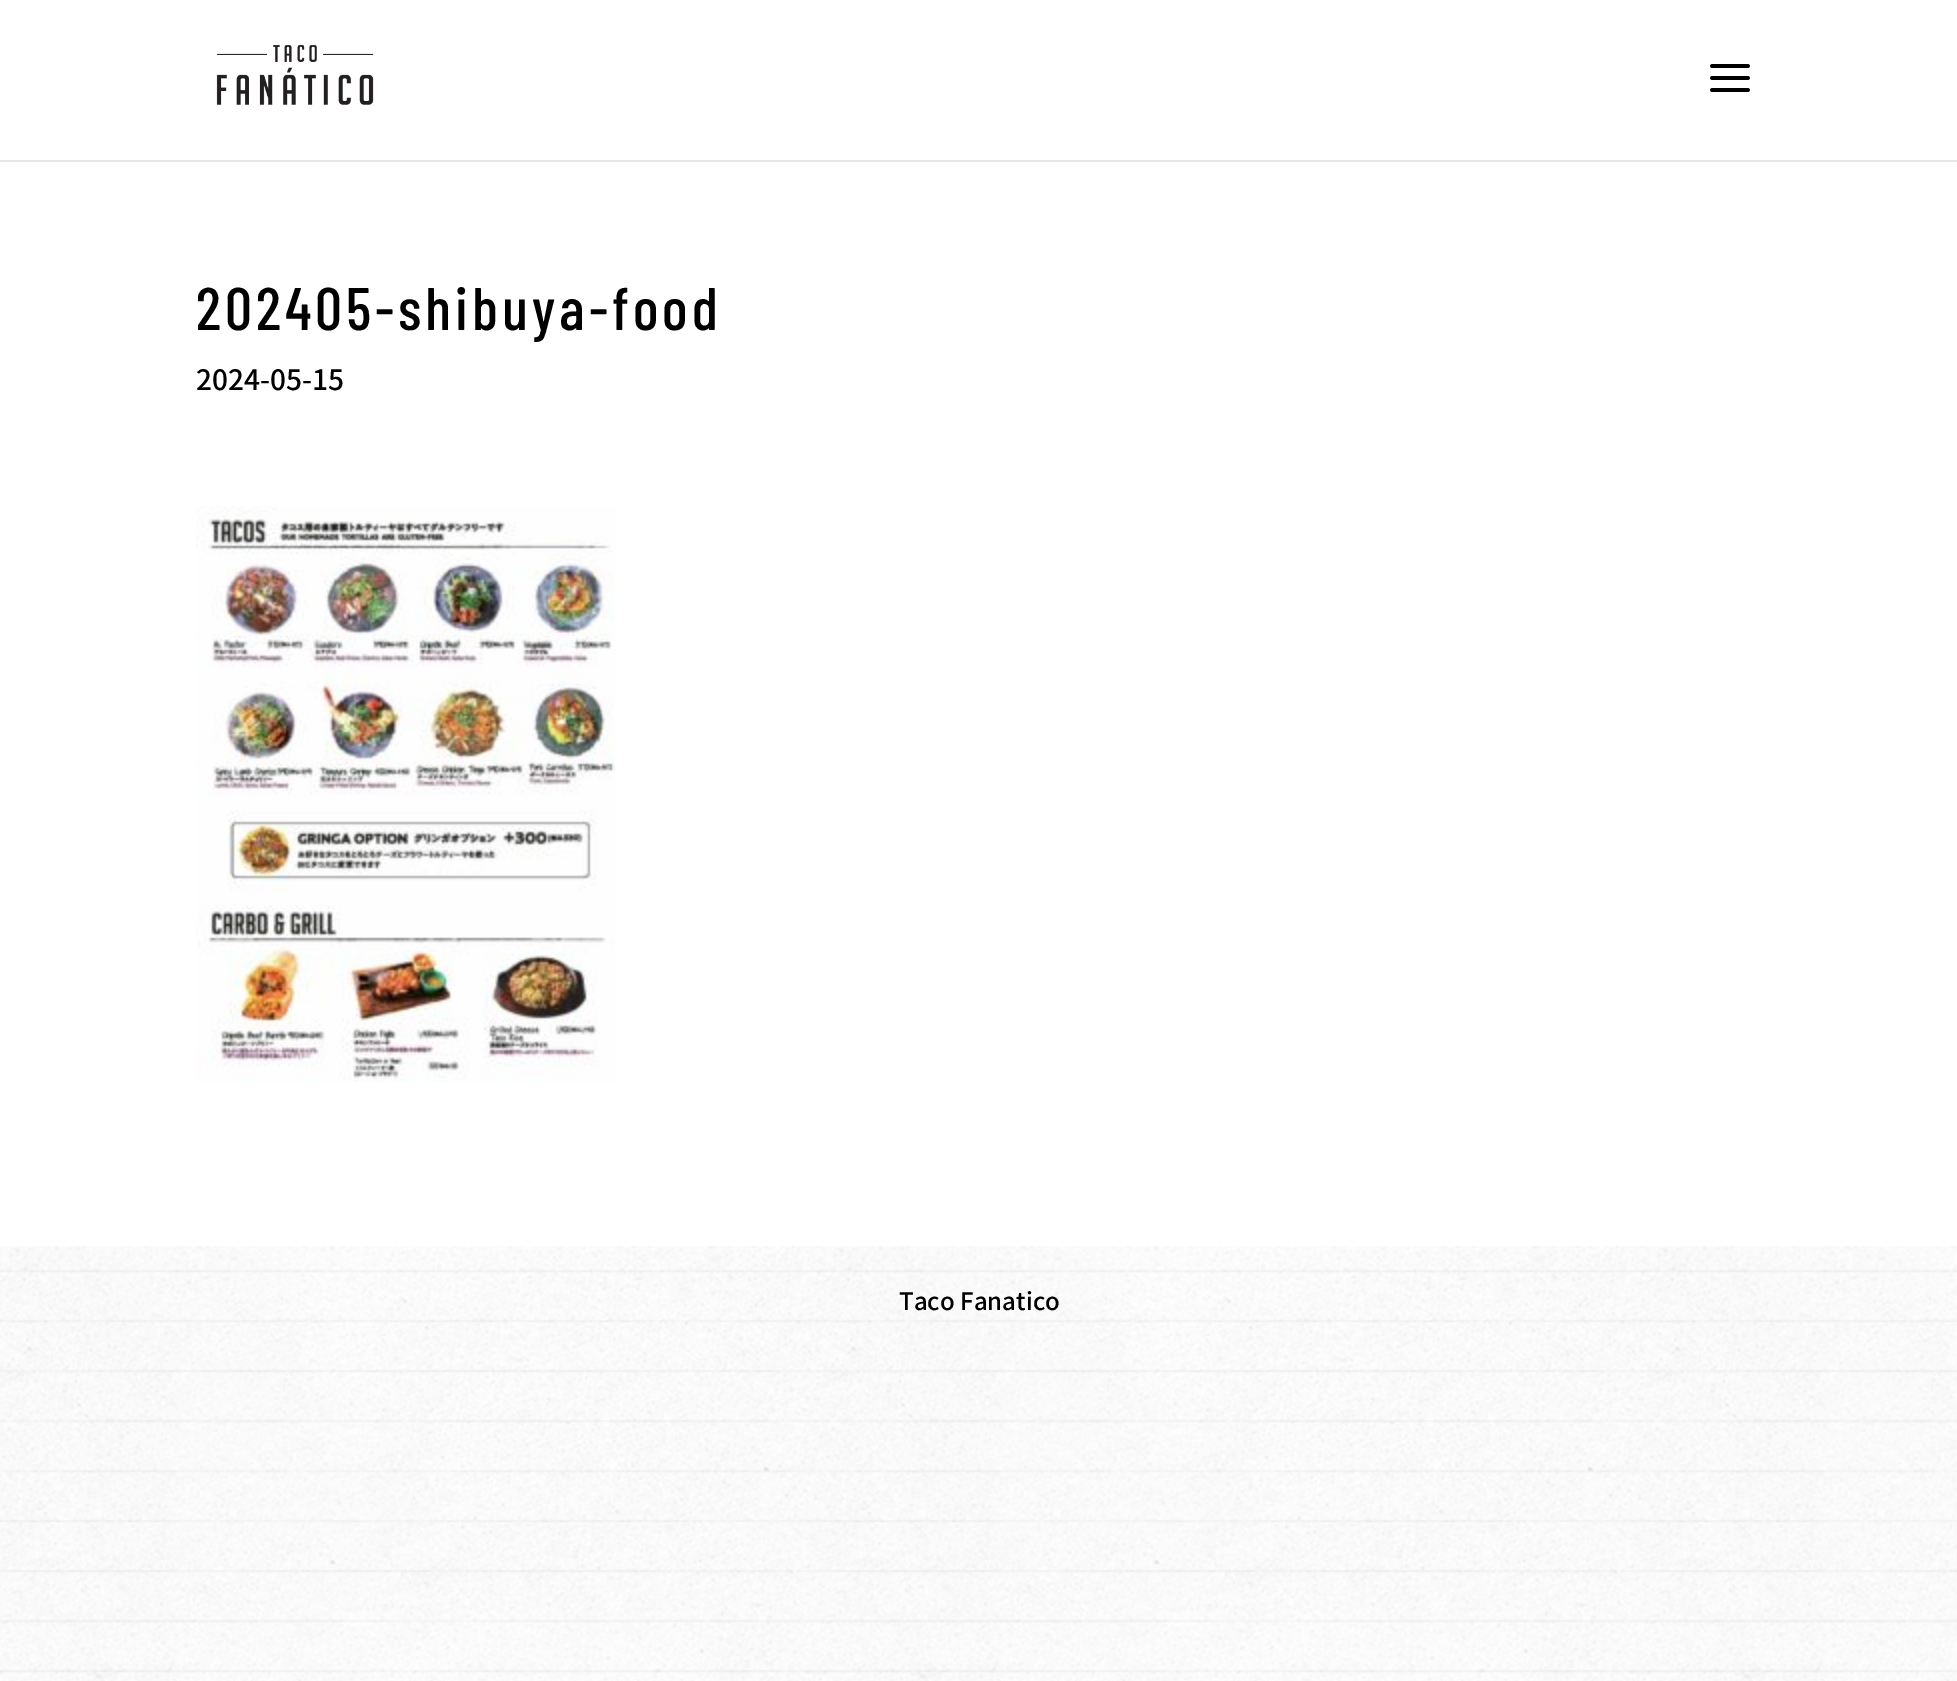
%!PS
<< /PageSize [1957 1681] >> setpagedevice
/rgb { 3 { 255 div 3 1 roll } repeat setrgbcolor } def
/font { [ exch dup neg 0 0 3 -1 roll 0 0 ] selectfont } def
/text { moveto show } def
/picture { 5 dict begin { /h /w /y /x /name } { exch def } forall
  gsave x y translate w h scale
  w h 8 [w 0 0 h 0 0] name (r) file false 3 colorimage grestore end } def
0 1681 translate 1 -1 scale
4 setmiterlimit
255 255 255 rgb
0 0 1957 1681 rectfill
(img_01.rgb) 0 1246 1957 435 picture
230 230 230 rgb
0 160 1957 2 rectfill
(img_02.rgb) 216 45 158 60 picture
(img_03.rgb) 1710 64 40 28 picture
(img_04.rgb) 196 506 420 576 picture
/BarlowCondensed-Medium 60 font
0 0 0 rgb
196 330 moveto 4 0 (202405-shibuya-food) ashow
/NotoSansJP-Medium 28 font
(2024-05-15) 196 390 text
/NotoSansJP-Medium 24 font
(Taco Fanatico) 899 1310 text
showpage
